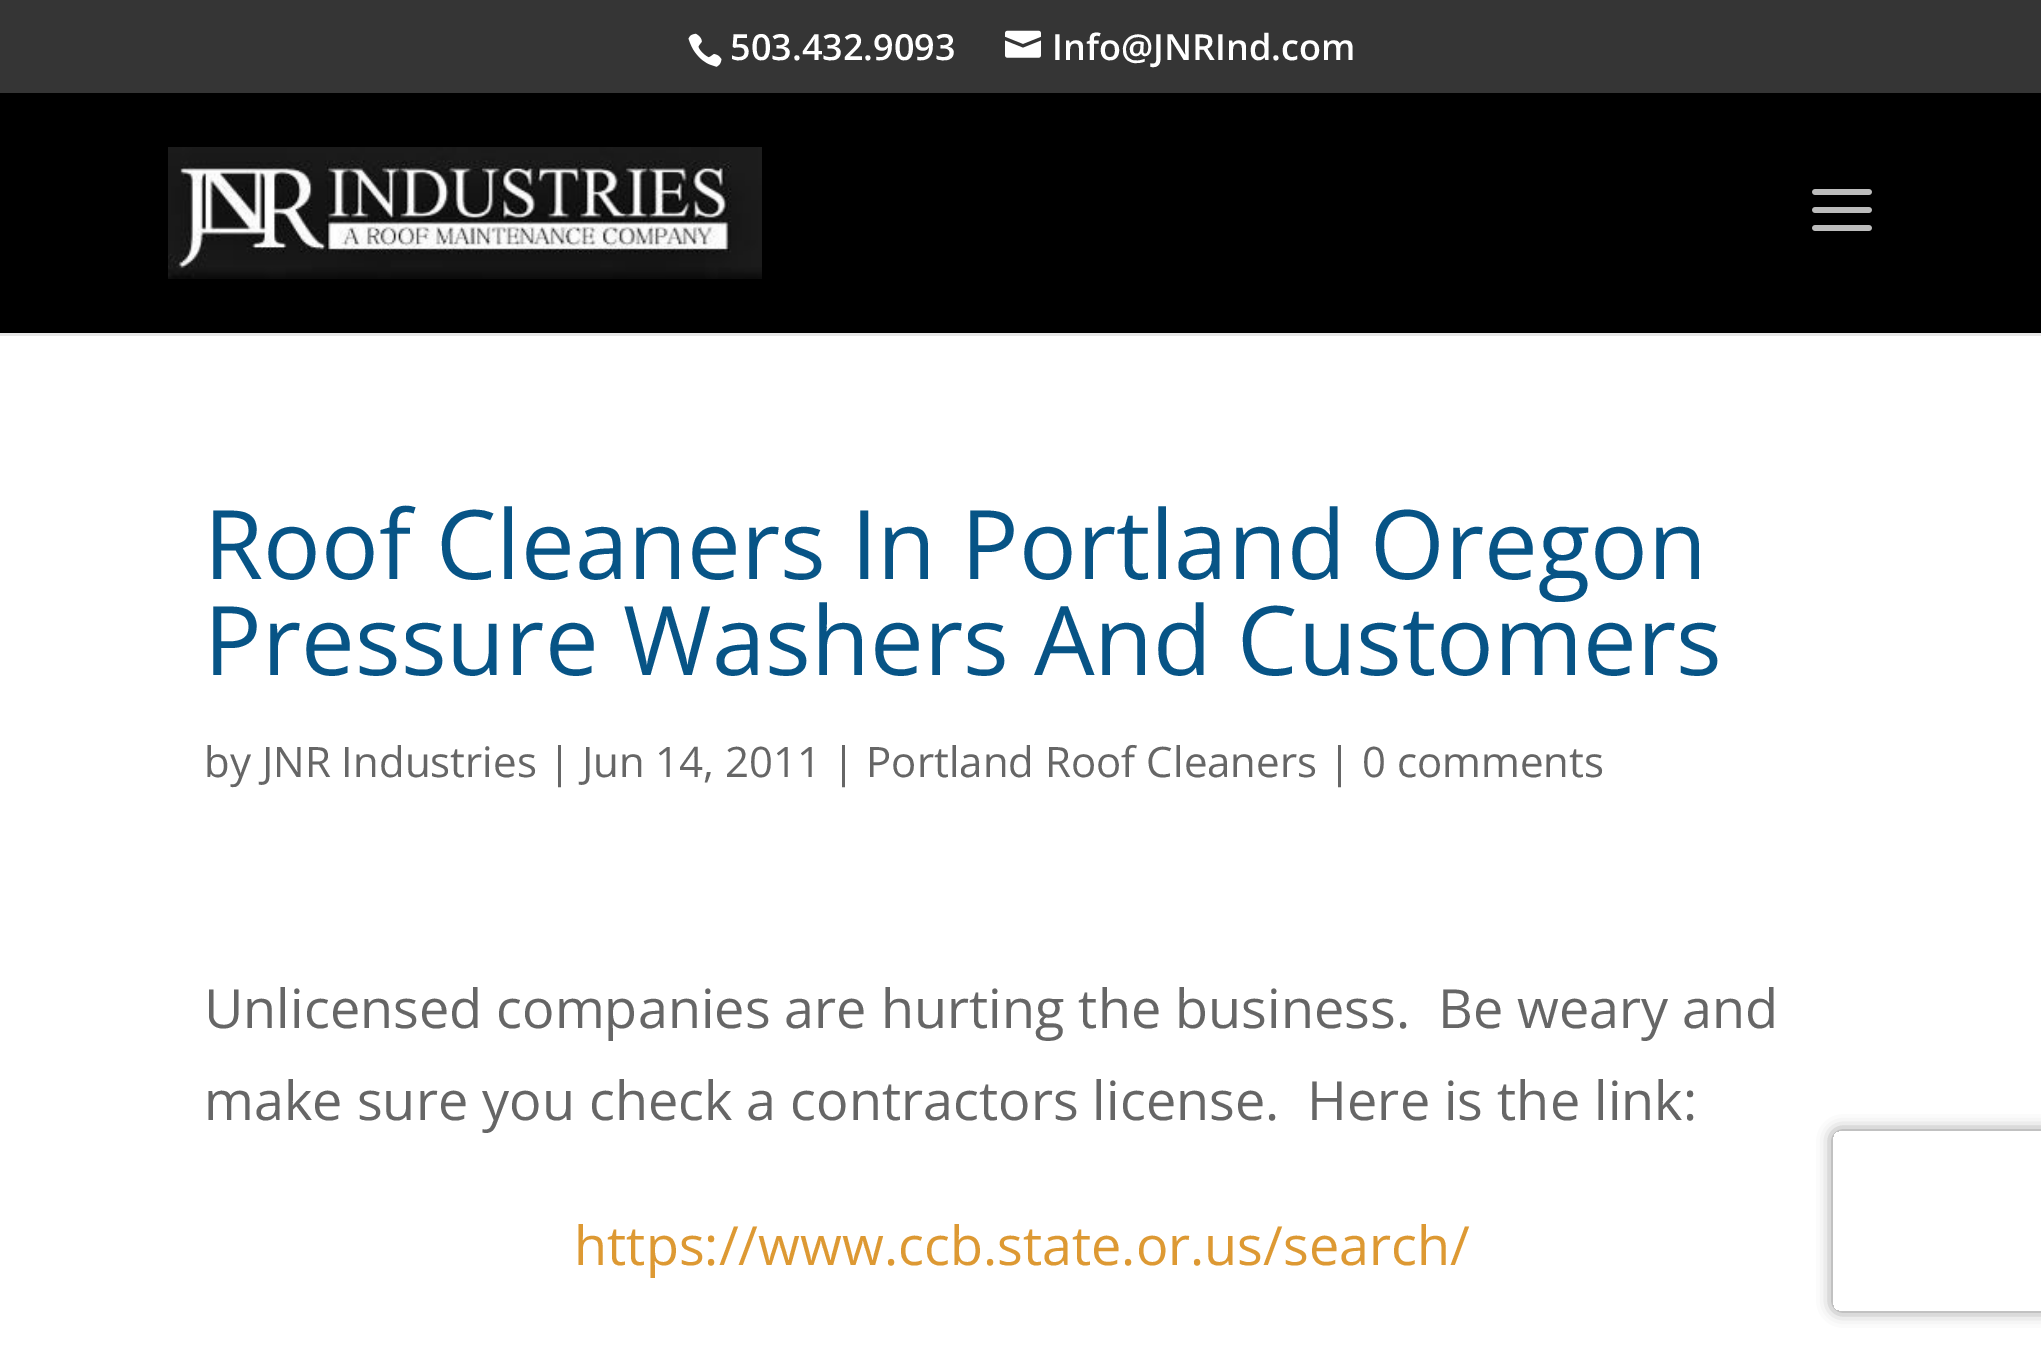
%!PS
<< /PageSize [2041 1351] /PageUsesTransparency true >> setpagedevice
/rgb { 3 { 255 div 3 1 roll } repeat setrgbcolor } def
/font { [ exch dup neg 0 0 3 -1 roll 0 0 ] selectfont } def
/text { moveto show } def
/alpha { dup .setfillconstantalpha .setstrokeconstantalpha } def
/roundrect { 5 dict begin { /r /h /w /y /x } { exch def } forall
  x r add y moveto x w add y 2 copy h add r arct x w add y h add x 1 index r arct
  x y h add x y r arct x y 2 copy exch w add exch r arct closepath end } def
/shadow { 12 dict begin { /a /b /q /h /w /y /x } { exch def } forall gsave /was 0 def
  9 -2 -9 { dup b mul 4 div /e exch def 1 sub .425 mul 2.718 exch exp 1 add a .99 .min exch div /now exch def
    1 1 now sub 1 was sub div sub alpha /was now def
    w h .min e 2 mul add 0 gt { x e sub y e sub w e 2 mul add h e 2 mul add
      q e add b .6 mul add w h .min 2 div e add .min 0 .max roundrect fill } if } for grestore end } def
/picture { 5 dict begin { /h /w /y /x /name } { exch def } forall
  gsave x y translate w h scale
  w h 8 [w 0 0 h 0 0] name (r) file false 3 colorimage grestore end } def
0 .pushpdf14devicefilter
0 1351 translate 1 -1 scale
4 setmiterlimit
255 255 255 rgb
0 0 2041 1351 rectfill
53 53 53 rgb
0 0 2041 93 rectfill
(img_01.rgb) 688 33 34 34 picture
(img_02.rgb) 1005 30 36 28 picture
230 230 230 rgb
0 333 2041 3 rectfill
0 0 0 rgb
0 93 2041 240 rectfill
(img_03.rgb) 168 147 594 132 picture
(img_04.rgb) 1812 189 60 42 picture
gsave
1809 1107 moveto 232 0 rlineto 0 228 rlineto -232 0 rlineto closepath 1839 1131 moveto 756 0 rlineto 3.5 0 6 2.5 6 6 rcurveto 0 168 rlineto 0 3.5 -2.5 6 -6 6 rcurveto -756 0 rlineto -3.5 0 -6 -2.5 -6 -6 rcurveto 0 -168 rlineto 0 -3.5 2.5 -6 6 -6 rcurveto closepath eoclip newpath
128 128 128 rgb
1833 1131 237 180 6 7.5 1 shadow
grestore
/OpenSans-SemiBold 36 font
255 255 255 rgb
(503.432.9093) 730 60 text
(Info@JNRInd.com) 1052 60 text
/OpenSans-Regular 96 font
7 84 134 rgb
(Roof Cleaners In Portland Oregon) 204 579 text
(Pressure Washers And Customers) 204 675 text
/OpenSans-Regular 42 font
102 102 102 rgb
(by JNR Industries | Jun 14, 2011 | Portland Roof Cleaners | 0 comments) 204 777 text
/OpenSans-Regular 54 font
(Unlicensed companies are hurting the business.  Be weary and) 204 1028 text
(make sure you check a contractors license.  Here is the link:) 204 1120 text
221 153 51 rgb
(https://www.ccb.state.or.us/search/) 574 1265 text
.poppdf14devicefilter showpage
